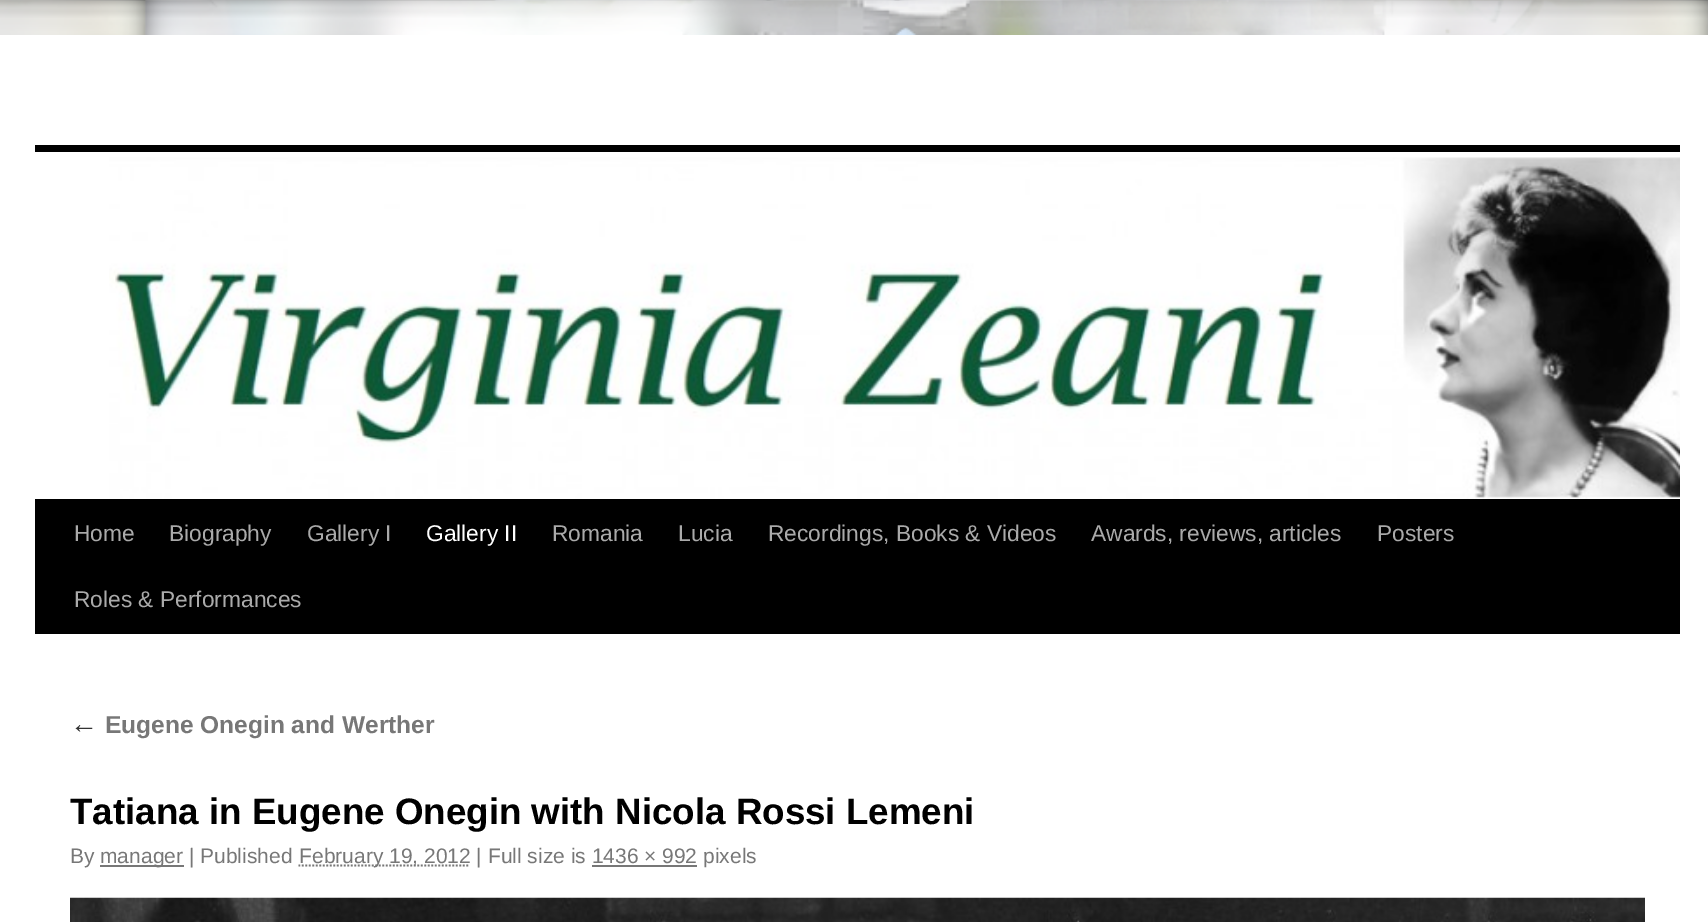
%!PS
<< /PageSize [1708 922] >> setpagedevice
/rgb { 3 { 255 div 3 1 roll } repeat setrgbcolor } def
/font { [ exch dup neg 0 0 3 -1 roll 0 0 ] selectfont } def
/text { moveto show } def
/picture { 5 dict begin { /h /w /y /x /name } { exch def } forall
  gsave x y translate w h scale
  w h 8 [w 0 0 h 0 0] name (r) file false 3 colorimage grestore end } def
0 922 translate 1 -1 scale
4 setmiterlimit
255 255 255 rgb
0 0 1708 922 rectfill
(img_01.rgb) 0 0 1708 35 picture
0 0 0 rgb
35 145 1645 7 rectfill
35 499 1645 135 rectfill
(img_02.rgb) 109 157 1571 342 picture
119 119 119 rgb
100 865 84 2 rectfill
1.8 setlinewidth
[1.75 1.75] 0 setdash
298.5 865.5 moveto 171.5 0 rlineto stroke
592 865 105 2 rectfill
(img_03.rgb) 70 897 1575 25 picture
/LiberationSans-Regular 22.75 font
170 170 170 rgb
(Home) 74 541 text
(Biography) 169 541 text
(Gallery I) 307 541 text
255 255 255 rgb
(Gallery II) 426 541 text
170 170 170 rgb
(Romania) 552 541 text
(Lucia) 678 541 text
(Recordings, Books & Videos) 768 541 text
(Awards, reviews, articles) 1091 541 text
(Posters) 1377 541 text
(Roles & Performances) 74 607 text
/LiberationSerif-Italic 28 font
51 51 51 rgb
(←) 70 733 text
/LiberationSans-Bold 24.5 font
119 119 119 rgb
(Eugene Onegin and Werther) 105 733 text
/LiberationSans-Bold 36.75 font
0 0 0 rgb
(Tatiana in Eugene Onegin with Nicola Rossi Lemeni) 70 824 text
/LiberationSans-Regular 21 font
119 119 119 rgb
(By) 70 863 text
(manager | Published) 100 863 text
(February 19, 2012 | Full size is 1436 × 992 pixels) 299 863 text
showpage
